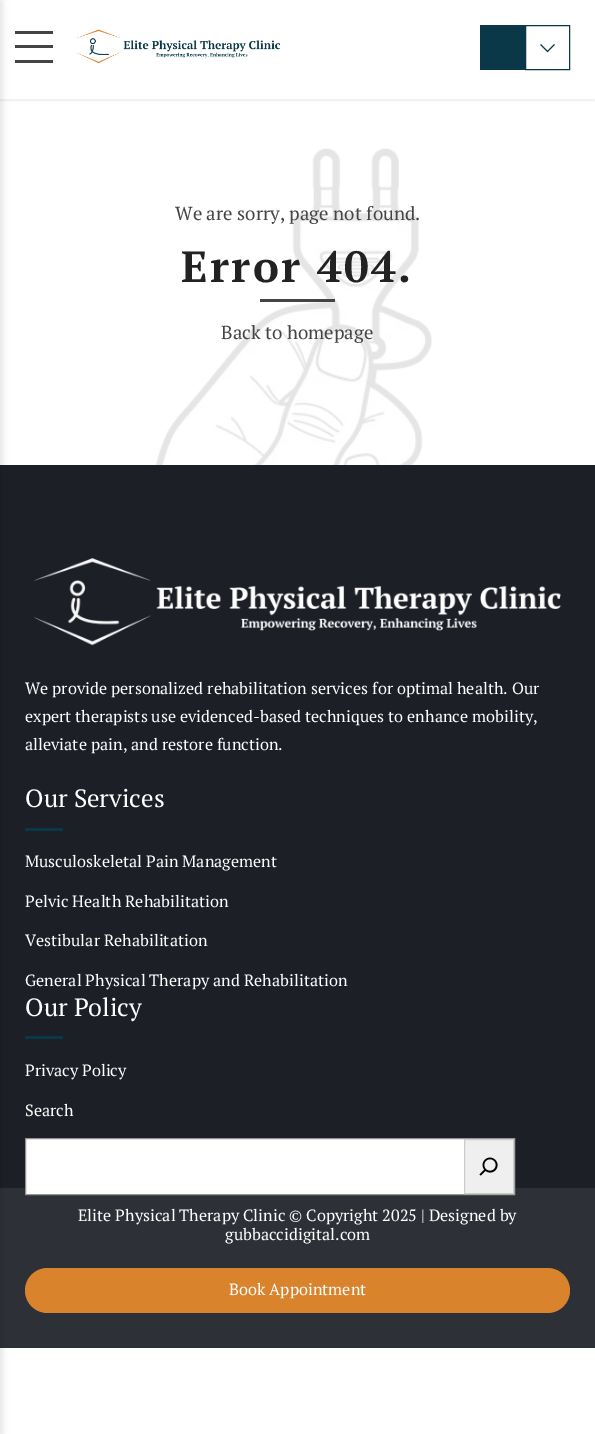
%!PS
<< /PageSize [595 1434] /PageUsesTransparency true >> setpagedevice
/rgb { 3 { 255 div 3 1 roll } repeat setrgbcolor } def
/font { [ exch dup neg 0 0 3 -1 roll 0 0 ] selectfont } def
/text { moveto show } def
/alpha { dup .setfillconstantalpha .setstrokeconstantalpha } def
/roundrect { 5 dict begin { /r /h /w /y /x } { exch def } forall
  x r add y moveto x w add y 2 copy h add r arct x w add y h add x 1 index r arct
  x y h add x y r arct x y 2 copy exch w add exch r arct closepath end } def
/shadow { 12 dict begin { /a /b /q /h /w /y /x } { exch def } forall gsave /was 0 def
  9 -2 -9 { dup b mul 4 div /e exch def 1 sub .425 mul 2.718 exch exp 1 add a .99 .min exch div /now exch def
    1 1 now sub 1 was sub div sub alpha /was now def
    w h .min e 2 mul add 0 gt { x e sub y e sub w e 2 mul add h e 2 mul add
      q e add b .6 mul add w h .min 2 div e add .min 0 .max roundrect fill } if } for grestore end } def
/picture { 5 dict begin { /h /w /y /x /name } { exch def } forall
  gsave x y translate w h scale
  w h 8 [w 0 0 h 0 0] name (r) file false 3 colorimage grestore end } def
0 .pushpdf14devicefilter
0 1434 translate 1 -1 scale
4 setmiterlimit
255 255 255 rgb
0 0 595 1434 rectfill
29 31 39 rgb
0 465 595 723 rectfill
46 48 55 rgb
0 1188 595 160 rectfill
0 0 0 rgb
-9 0 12 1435 0 3 0.1 shadow
gsave
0 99 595 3 rectclip
0 1 595 99 0 2 0.1 shadow
grestore
68 68 68 rgb
15 31 38 3 rectfill
15 45 38 3 rectfill
15 60 38 3 rectfill
(img_01.rgb) 76 29 204 34 picture
10 56 72 rgb
480 25 45 45 rectfill
525.5 25.5 44 44 rectstroke
(img_02.rgb) 540 44 15 9 picture
(img_03.rgb) 156 148 276 317 picture
68 68 68 rgb
260 299 75 3 rectfill
(img_04.rgb) 34 558 527 88 picture
10 56 72 rgb
25 828 38 3 rectfill
25 1036 38 3 rectfill
255 255 255 rgb
26 1139 438 55 rectfill
148 148 148 rgb
25.5 1138.5 489 56 rectstroke
239 239 239 rgb
464.5 1139.5 moveto 49 0 rlineto 0 54 rlineto -49 0 rlineto closepath gsave fill grestore
204 204 204 rgb
stroke
(img_05.rgb) 479 1157 19 19 picture
217 131 45 rgb
25 1268 545 45 22.5 roundrect fill
/PTSerif-Regular 18.75 font
68 68 68 rgb
(We are sorry, page not found.) 175 220 text
/PTSerif-Bold 43.75 font
34 34 34 rgb
181 282 moveto 2.5 0 (Error 404.) ashow
/PTSerif-Regular 18.75 font
68 68 68 rgb
(Back to homepage) 221 339 text
/PTSerif-Regular 16.25 font
255 255 255 rgb
(We provide personalized rehabilitation services for optimal health. Our) 25 694 text
(expert therapists use evidenced-based techniques to enhance mobility,) 25 722 text
(alleviate pain, and restore function.) 25 750 text
/PTSerif-Regular 25 font
(Our Services) 25 807 text
/PTSerif-Regular 16.25 font
(Musculoskeletal Pain Management) 25 867 text
(Pelvic Health Rehabilitation) 25 907 text
(Vestibular Rehabilitation) 25 946 text
(General Physical Therapy and Rehabilitation) 25 986 text
/PTSerif-Regular 25 font
(Our Policy) 25 1016 text
/PTSerif-Regular 16.25 font
(Privacy Policy) 25 1076 text
(Search) 25 1116 text
(Elite Physical Therapy Clinic © Copyright 2025 | Designed by) 78 1221 text
(gubbaccidigital.com) 225 1240 text
(Book Appointment) 229 1295 text
.poppdf14devicefilter showpage
